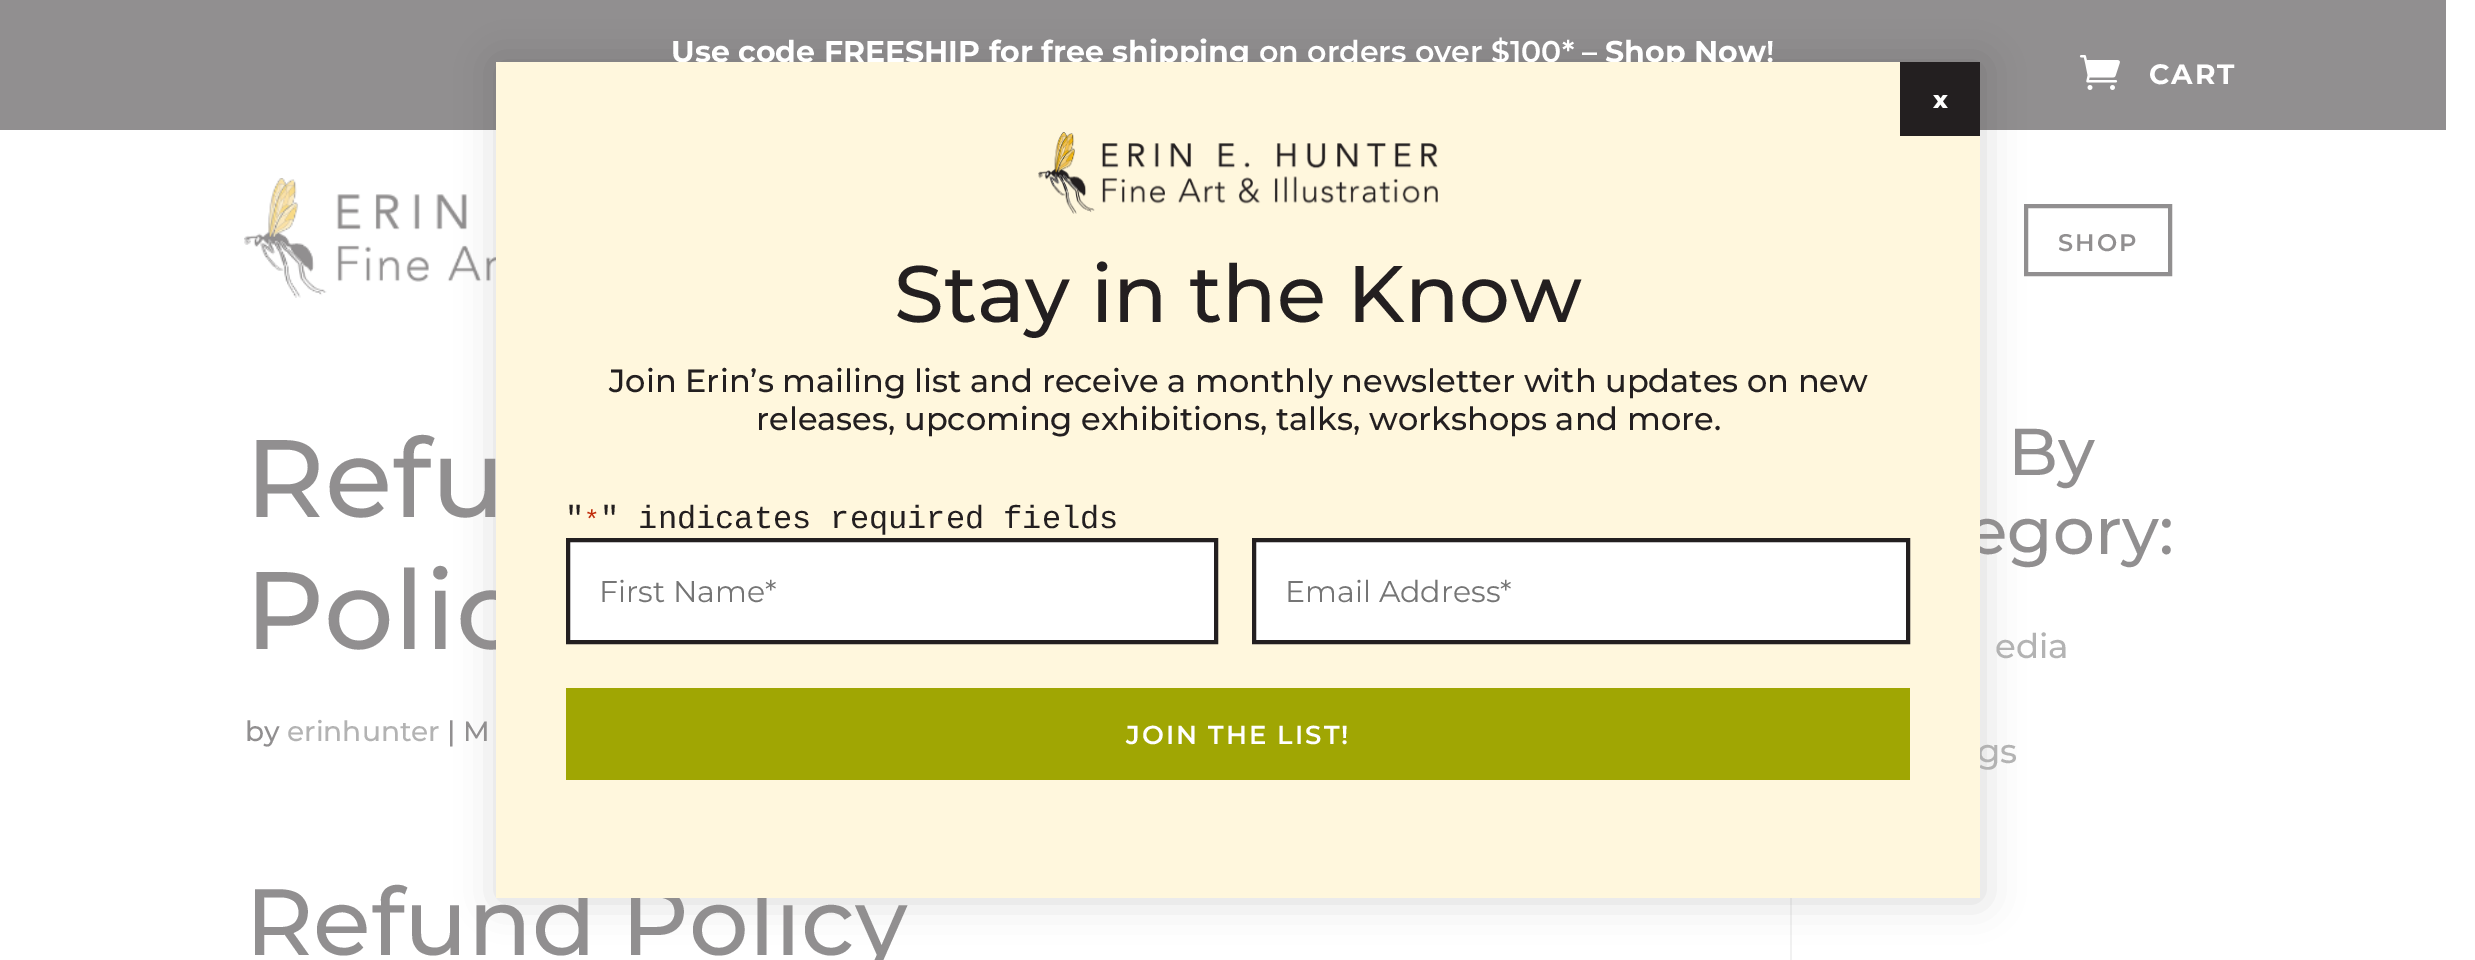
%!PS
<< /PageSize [2475 960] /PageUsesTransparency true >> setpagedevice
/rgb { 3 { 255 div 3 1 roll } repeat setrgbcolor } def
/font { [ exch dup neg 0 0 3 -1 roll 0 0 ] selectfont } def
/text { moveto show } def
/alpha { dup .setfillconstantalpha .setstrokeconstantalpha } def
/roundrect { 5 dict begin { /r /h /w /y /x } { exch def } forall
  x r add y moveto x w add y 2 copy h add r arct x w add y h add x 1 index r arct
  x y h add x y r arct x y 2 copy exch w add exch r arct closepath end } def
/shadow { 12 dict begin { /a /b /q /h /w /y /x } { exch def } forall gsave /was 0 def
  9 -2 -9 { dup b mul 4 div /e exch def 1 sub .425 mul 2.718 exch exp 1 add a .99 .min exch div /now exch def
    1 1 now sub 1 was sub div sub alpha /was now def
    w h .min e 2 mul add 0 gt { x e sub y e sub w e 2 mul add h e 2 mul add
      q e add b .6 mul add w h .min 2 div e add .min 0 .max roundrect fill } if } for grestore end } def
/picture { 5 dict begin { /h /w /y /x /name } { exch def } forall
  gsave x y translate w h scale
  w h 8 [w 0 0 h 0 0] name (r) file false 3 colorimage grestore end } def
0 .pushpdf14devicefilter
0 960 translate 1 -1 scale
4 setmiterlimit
255 255 255 rgb
0 0 2475 960 rectfill
145 143 144 rgb
0 0 2446 130 rectfill
(img_01.rgb) 2079 55 41 35 picture
(img_02.rgb) 244 178 252 120 picture
4 setlinewidth
2026 206 144 68 rectstroke
241 241 241 rgb
1790 898 2 62 rectfill
2 2 2 rgb
498 64 1484 836 0 20 0.15 shadow
/Montserrat-Bold 30 font
255 255 255 rgb
(Use code FREESHIP for free shipping) 671 62 text
/Montserrat-SemiBold 30 font
(on orders over $100* –) 1259 62 text
/Montserrat-Bold 30 font
(Shop Now) 1605 62 text
/Montserrat-SemiBold 30 font
(!) 1766 62 text
/Montserrat-Bold 28 font
2149 84 moveto 2 0 (CART) ashow
/Montserrat-SemiBold 24 font
145 143 144 rgb
2058 251 moveto 2 0 (SHOP) ashow
/Montserrat-Medium 110 font
(Refu) 245 517 text
(Polic) 245 649 text
/Montserrat-Medium 28 font
(by) 245 741 text
179 179 179 rgb
(erinhunter) 287 741 text
145 143 144 rgb
(| M) 447 741 text
/Montserrat-Medium 94 font
(Refund Policy) 245 955 text
/Montserrat-Medium 66 font
(By) 2008 475 text
(egory:) 1967 554 text
/Montserrat-Medium 34 font
179 179 179 rgb
(edia) 1995 658 text
(gs) 1977 763 text
255 247 221 rgb
496 62 1484 836 rectfill
35 31 32 rgb
1900 62 80 74 rectfill
/Montserrat-ExtraBold 24 font
255 255 255 rgb
(x) 1933 108 text
(img_03.rgb) 1038 132 400 82 picture
/Montserrat-Medium 80 font
35 31 32 rgb
(Stay in the Know) 894 322 text
/Montserrat-Medium 32 font
(Join Erin’s mailing list and receive a monthly newsletter with updates on new) 609 392 text
(releases, upcoming exhibitions, talks, workshops and more.) 756 430 text
/LiberationMono-Regular 32 font
(") 565 528 text
/LiberationMono-Regular 26 font
192 43 10 rgb
(*) 584 528 text
/LiberationMono-Regular 32 font
35 31 32 rgb
(" indicates required fields) 600 528 text
255 255 255 rgb
568 540 moveto 648 0 rlineto 0 102 rlineto -648 0 rlineto closepath gsave fill grestore
35 31 32 rgb
stroke
/Montserrat-Regular 30 font
117 117 117 rgb
(First Name*) 599 602 text
255 255 255 rgb
1254 540 moveto 654 0 rlineto 0 102 rlineto -654 0 rlineto closepath gsave fill grestore
35 31 32 rgb
stroke
117 117 117 rgb
(Email Address*) 1285 602 text
160 166 3 rgb
566 688 1344 92 rectfill
/Montserrat-SemiBold 26 font
255 255 255 rgb
1126 744 moveto 2 0 (JOIN THE LIST!) ashow
.poppdf14devicefilter showpage
